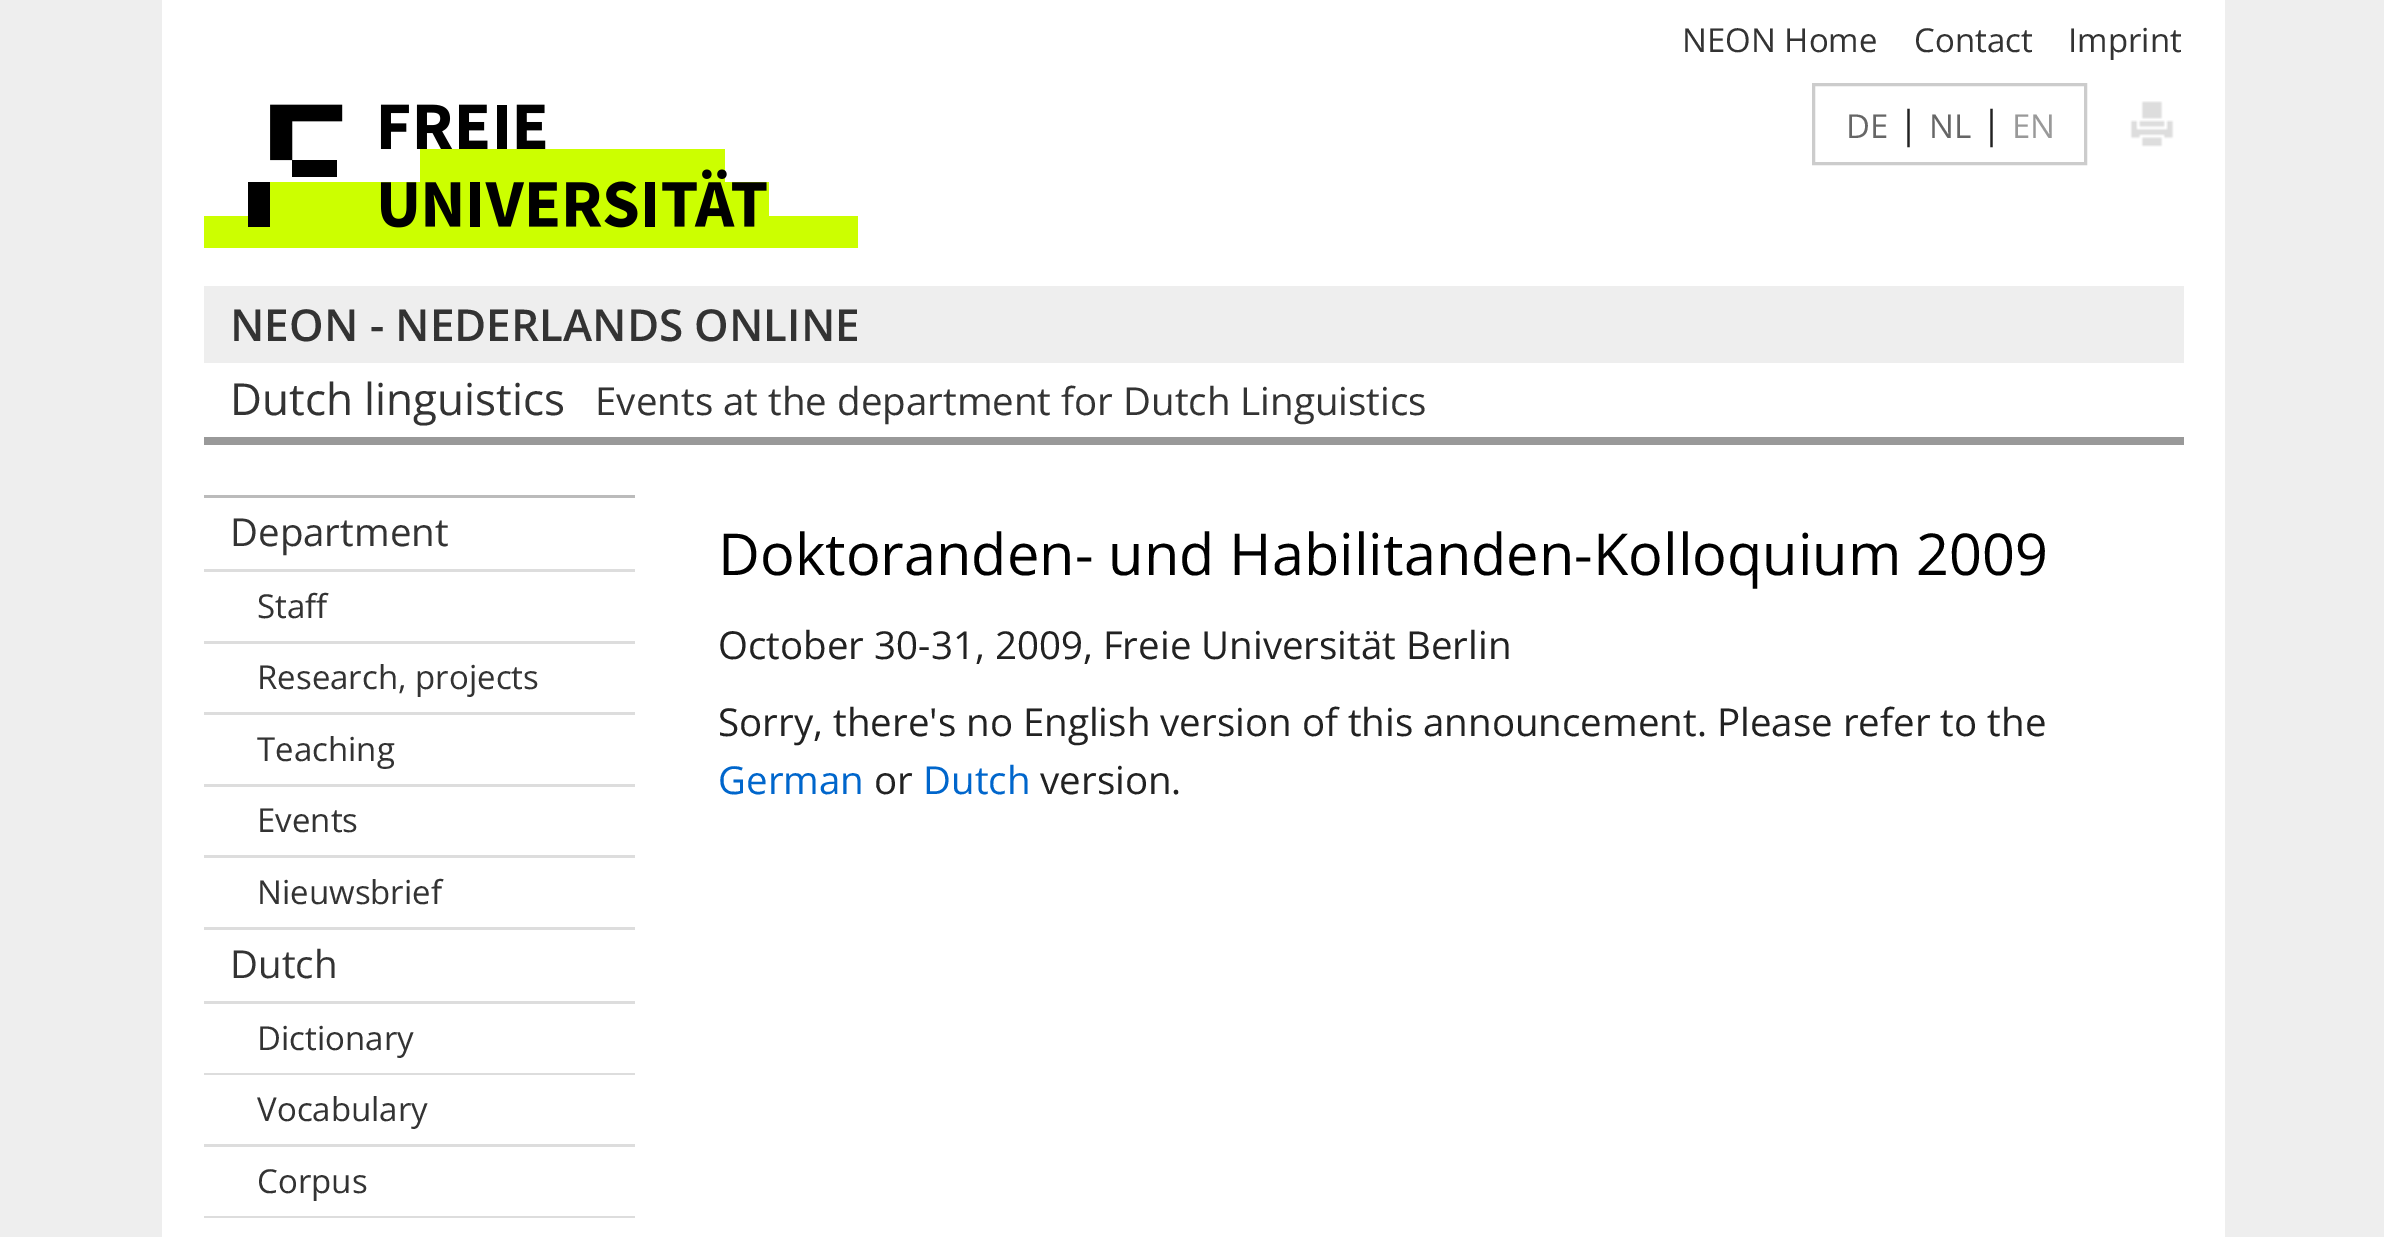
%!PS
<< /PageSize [2384 1237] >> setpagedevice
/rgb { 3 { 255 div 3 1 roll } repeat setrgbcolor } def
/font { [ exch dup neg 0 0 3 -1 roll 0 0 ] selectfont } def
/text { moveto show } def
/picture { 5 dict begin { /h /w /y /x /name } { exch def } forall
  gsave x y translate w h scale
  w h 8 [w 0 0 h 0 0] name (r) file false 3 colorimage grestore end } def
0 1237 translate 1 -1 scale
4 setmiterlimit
238 238 238 rgb
0 0 2384 1237 rectfill
255 255 255 rgb
162 0 2063 1237 rectfill
(img_01.rgb) 204 104 654 144 picture
204 204 204 rgb
3 setlinewidth
1813.5 84.5 272 79 rectstroke
(img_02.rgb) 2130 101 44 46 picture
238 238 238 rgb
204 286 1980 77 rectfill
153 153 153 rgb
204 437 1980 8 rectfill
187 187 187 rgb
204 495 431 3 rectfill
221 221 221 rgb
204 569 431 3 rectfill
204 641 431 3 rectfill
204 712 431 3 rectfill
204 784 431 3 rectfill
204 855 431 3 rectfill
204 927 431 3 rectfill
204 1001 431 3 rectfill
204 1073 431 2 rectfill
204 1144 431 3 rectfill
204 1216 431 2 rectfill
/OpenSans-Regular 33 font
51 51 51 rgb
(NEON Home) 1682 52 text
(Contact) 1914 52 text
(Imprint) 2068 52 text
102 102 102 rgb
(DE) 1846 138 text
/OpenSans-Regular 38.5 font
34 34 34 rgb
(|) 1898 138 text
/OpenSans-Regular 33 font
102 102 102 rgb
(NL) 1929 138 text
/OpenSans-Regular 38.5 font
34 34 34 rgb
(|) 1981 138 text
/OpenSans-Regular 33 font
153 153 153 rgb
(EN) 2012 138 text
/OpenSans-SemiBold 44 font
51 51 51 rgb
(NEON - NEDERLANDS ONLINE) 230 341 text
/OpenSans-Regular 44 font
(Dutch linguistics) 230 415 text
/OpenSans-Regular 38.5 font
(Events at the department for Dutch Linguistics) 595 415 text
(Department) 230 546 text
/OpenSans-Regular 33 font
(Staff) 257 618 text
(Research, projects) 257 689 text
(Teaching) 257 761 text
(Events) 257 832 text
(Nieuwsbrief) 257 904 text
/OpenSans-Regular 38.5 font
(Dutch) 230 978 text
/OpenSans-Regular 33 font
(Dictionary) 257 1050 text
(Vocabulary) 257 1121 text
(Corpus) 257 1193 text
/OpenSans-Regular 57.75 font
0 0 0 rgb
(Doktoranden- und Habilitanden-Kolloquium 2009) 718 575 text
/OpenSans-Regular 38.5 font
34 34 34 rgb
(October 30-31, 2009, Freie Universität Berlin) 718 659 text
(Sorry, there's no English version of this announcement. Please refer to the) 718 736 text
0 102 204 rgb
(German) 718 794 text
34 34 34 rgb
(or) 874 794 text
0 102 204 rgb
(Dutch) 923 794 text
34 34 34 rgb
(version.) 1040 794 text
showpage
